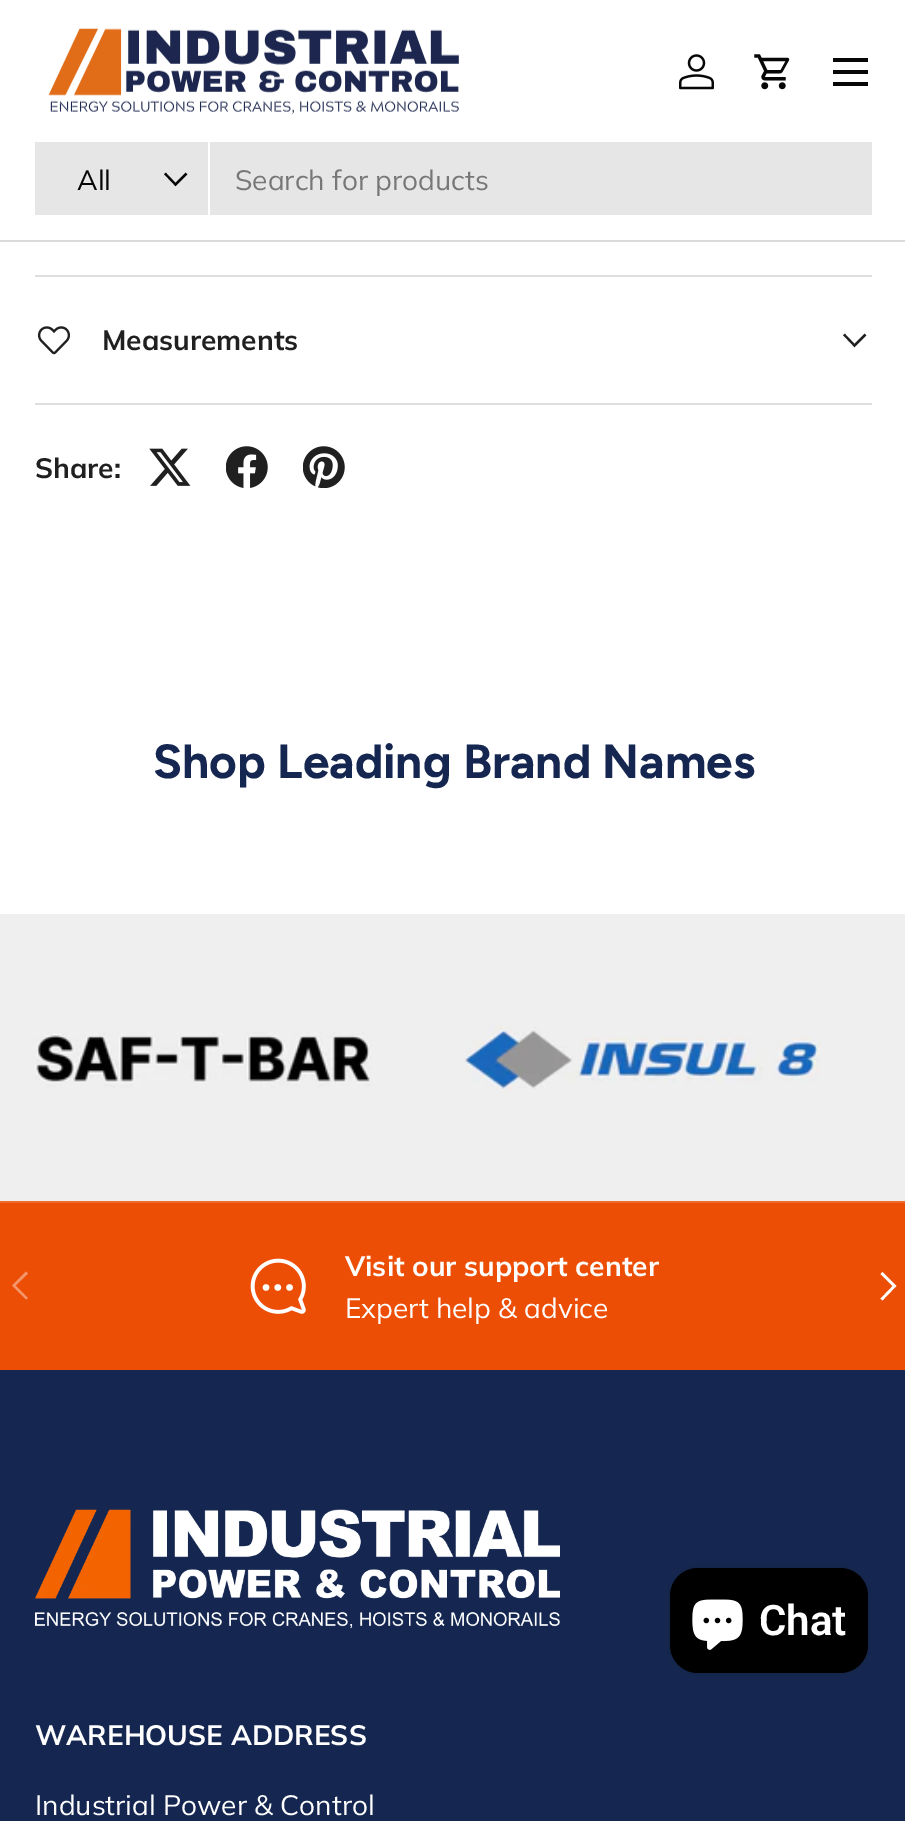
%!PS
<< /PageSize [905 1821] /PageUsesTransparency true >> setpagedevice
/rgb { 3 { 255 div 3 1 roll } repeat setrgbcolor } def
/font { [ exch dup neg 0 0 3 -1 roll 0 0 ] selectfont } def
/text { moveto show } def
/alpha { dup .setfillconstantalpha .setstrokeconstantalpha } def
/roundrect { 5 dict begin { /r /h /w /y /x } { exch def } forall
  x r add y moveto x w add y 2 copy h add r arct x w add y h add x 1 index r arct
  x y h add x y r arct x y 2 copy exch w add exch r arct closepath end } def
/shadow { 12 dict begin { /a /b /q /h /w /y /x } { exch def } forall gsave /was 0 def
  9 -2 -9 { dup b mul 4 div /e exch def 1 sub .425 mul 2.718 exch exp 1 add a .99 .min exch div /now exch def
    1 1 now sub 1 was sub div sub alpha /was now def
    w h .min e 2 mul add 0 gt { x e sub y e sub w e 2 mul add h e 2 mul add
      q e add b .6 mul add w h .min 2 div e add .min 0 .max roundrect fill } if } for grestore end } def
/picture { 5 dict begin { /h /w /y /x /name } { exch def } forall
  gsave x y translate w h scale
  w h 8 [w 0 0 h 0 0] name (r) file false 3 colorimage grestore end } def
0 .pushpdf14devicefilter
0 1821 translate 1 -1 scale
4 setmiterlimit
255 255 255 rgb
0 0 905 1821 rectfill
218 218 218 rgb
0 240 905 2 rectfill
(img_01.rgb) 48 28 411 86 picture
(img_02.rgb) 679 54 35 36 picture
(img_03.rgb) 754 54 36 36 picture
7 7 7 rgb
833 58 35 4 rectfill
833 82 35 4 rectfill
833 70 35 4 rectfill
230 230 230 rgb
35 142 837 73 rectfill
255 255 255 rgb
208 142 2 73 rectfill
7 7 7 rgb
2.2 setlinewidth
186.5 173.5 moveto -11 11 rlineto -10.5 -11 rlineto stroke
222 222 222 rgb
35 275 837 2 rectfill
35 403 837 2 rectfill
(img_04.rgb) 37 326 33 29 picture
32 32 32 rgb
865.5 334.5 moveto -11 11 rlineto -10.5 -11 rlineto stroke
(img_05.rgb) 149 448 42 38 picture
(img_06.rgb) 226 446 42 42 picture
(img_07.rgb) 303 446 42 42 picture
239 239 239 rgb
0 914 905 287 rectfill
(img_08.rgb) 35 1032 336 56 picture
(img_09.rgb) 465 1025 355 67 picture
236 78 6 rgb
0 1203 905 167 rectfill
239 105 43 rgb
0 1201 905 2 rectfill
(img_10.rgb) 250 1258 56 56 picture
244 149 106 rgb
12 1285.5 moveto 14 -14 rlineto 2 2 rlineto -12.5 12 rlineto 12.5 12.5 rlineto -2 1.5 rlineto closepath fill
255 255 255 rgb
2.6 setlinewidth
881.5 1273 moveto 13 13 rlineto -13 13.5 rlineto stroke
21 39 81 rgb
0 1370 905 451 rectfill
(img_11.rgb) 35 1509 525 120 picture
0 0 0 rgb
670 1568 198 105 28 4.5 0.15 shadow
670 1568 198 105 28 roundrect fill
(img_12.rgb) 692 1599 51 51 picture
/Muli-Regular 28 font
7 7 7 rgb
(All) 77 190 text
119 119 119 rgb
(Search for products) 235 190 text
/Muli-Bold 28 font
32 32 32 rgb
(Measurements) 102 350 text
(Share:) 35 478 text
/Figtree-Bold 47.75 font
21 39 81 rgb
(Shop Leading Brand Names) 153 778 text
/Muli-Bold 28 font
255 255 255 rgb
(Visit our support center) 345 1276 text
/Muli-Regular 28 font
(Expert help & advice) 345 1318 text
/Roboto-SemiBold 42 font
(Chat) 759 1635 text
/Muli-Bold 28 font
(WAREHOUSE ADDRESS) 35 1745 text
/Muli-Regular 28 font
(Industrial Power & Control) 35 1815 text
.poppdf14devicefilter showpage
